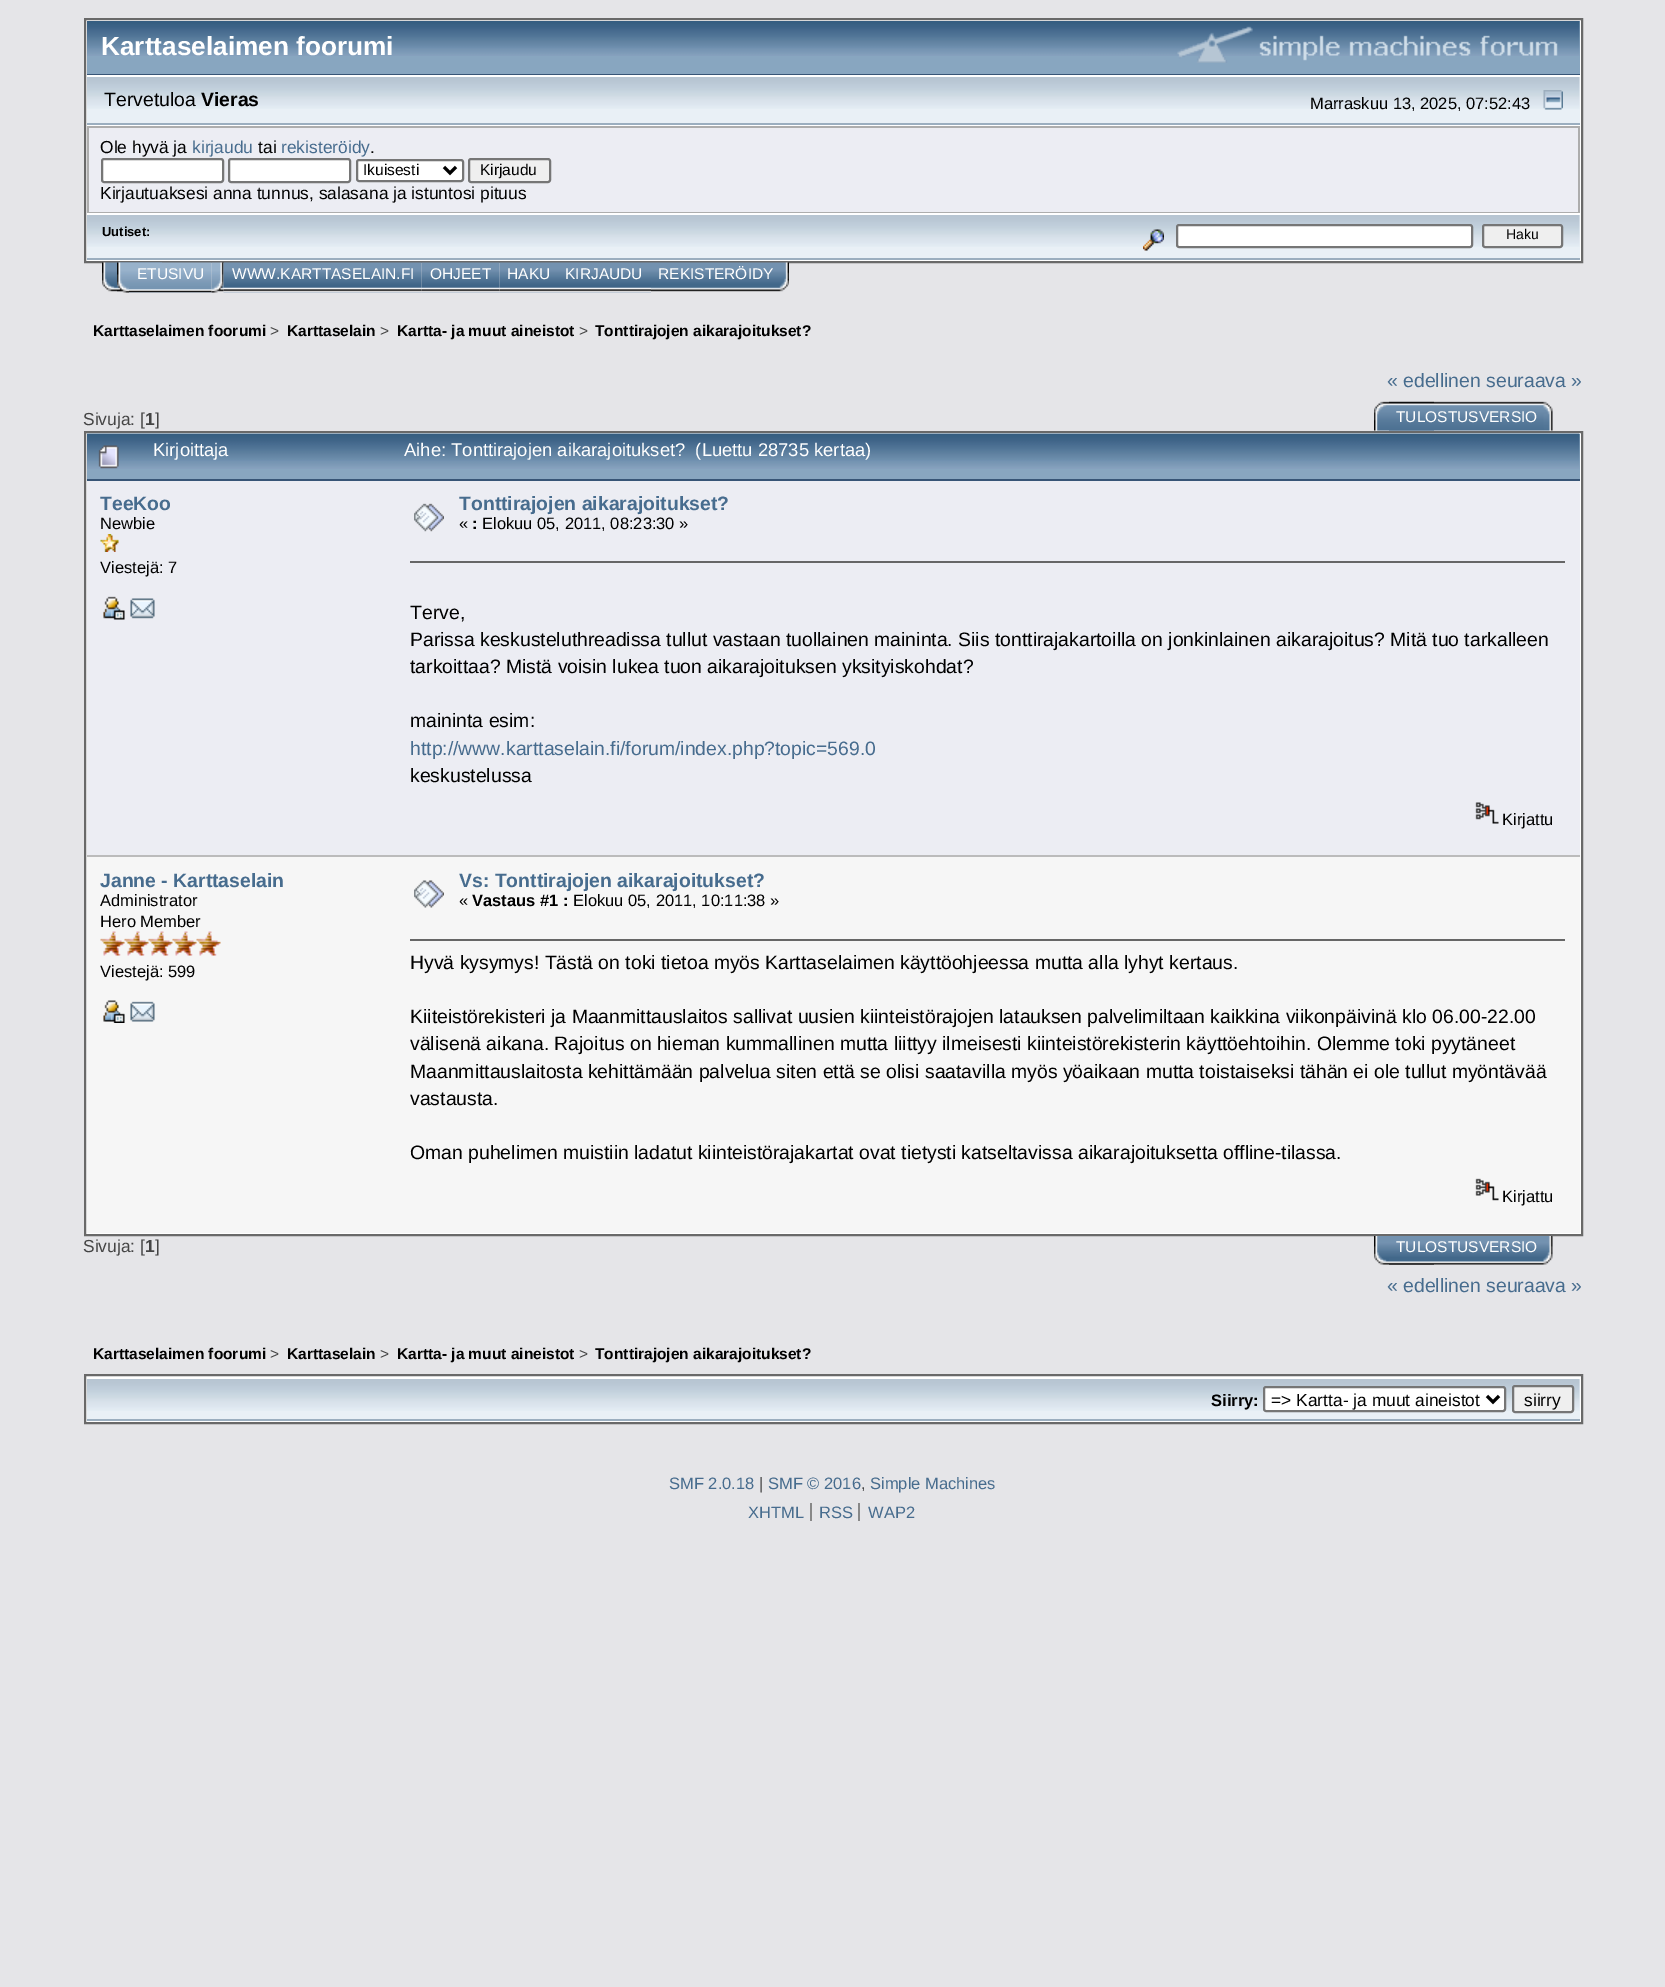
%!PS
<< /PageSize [1665 1987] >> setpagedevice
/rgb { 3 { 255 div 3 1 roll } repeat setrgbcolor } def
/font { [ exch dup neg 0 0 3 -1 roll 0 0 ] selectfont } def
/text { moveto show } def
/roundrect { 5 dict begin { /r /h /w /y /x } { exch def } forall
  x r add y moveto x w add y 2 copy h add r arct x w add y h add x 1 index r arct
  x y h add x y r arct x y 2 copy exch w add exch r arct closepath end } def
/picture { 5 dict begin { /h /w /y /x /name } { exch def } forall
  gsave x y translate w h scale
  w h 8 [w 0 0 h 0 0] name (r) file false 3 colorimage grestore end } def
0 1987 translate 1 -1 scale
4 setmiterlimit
229 229 232 rgb
0 0 1665 1987 rectfill
255 255 255 rgb
85 19 moveto 1497 0 rlineto 0 243 rlineto -1497 0 rlineto closepath gsave fill grestore
105 105 105 rgb
2 setlinewidth
stroke
136 166 192 rgb
87 21 1493 53 rectfill
(img_01.rgb) 87 21 1493 35 picture
55 85 118 rgb
87 74 1493 1 rectfill
(img_02.rgb) 1177 26 381 37 picture
233 240 246 rgb
87 77 1493 46 rectfill
(img_03.rgb) 87 77 1493 32 picture
155 174 191 rgb
87 123 1493 2 rectfill
(img_04.rgb) 1543 90 20 20 picture
173 173 173 rgb
87 126 1493 87 rectfill
236 237 243 rgb
89 128 1489 84 rectfill
255 255 255 rgb
102 159 121 23 2 roundrect gsave fill grestore
118 118 118 rgb
stroke
255 255 255 rgb
229 159 121 23 2 roundrect gsave fill grestore
118 118 118 rgb
stroke
255 255 255 rgb
357 160 106 21 2 roundrect gsave fill grestore
118 118 118 rgb
stroke
0 0 0 rgb
3 setlinewidth
444 167 moveto 6 6 rlineto 6 -6 rlineto stroke
239 239 239 rgb
469 159 81 23 2 roundrect gsave fill grestore
118 118 118 rgb
2 setlinewidth
stroke
233 240 246 rgb
87 215 1493 43 rectfill
(img_03.rgb) 87 215 1493 32 picture
155 174 191 rgb
87 258 1493 2 rectfill
(img_05.rgb) 1143 229 21 22 picture
255 255 255 rgb
1177 225 295 22 2 roundrect gsave fill grestore
118 118 118 rgb
stroke
239 239 239 rgb
1483 225 79 22 2 roundrect gsave fill grestore
118 118 118 rgb
stroke
(img_06.rgb) 102 262 60 30 picture
(img_07.rgb) 211 262 13 31 picture
(img_08.rgb) 117 262 12 31 picture
(img_09.rgb) 129 262 83 31 picture
(img_10.rgb) 223 262 199 31 picture
(img_11.rgb) 421 262 79 31 picture
(img_12.rgb) 499 262 59 31 picture
(img_13.rgb) 558 262 93 31 picture
(img_14.rgb) 651 262 138 30 picture
(img_15.rgb) 1374 401 60 30 picture
(img_16.rgb) 1389 401 164 30 picture
255 255 255 rgb
85 432 moveto 1497 0 rlineto 0 803 rlineto -1497 0 rlineto closepath gsave fill grestore
105 105 105 rgb
stroke
136 166 192 rgb
87 434 1493 45 rectfill
(img_17.rgb) 87 433 1493 36 picture
55 85 118 rgb
87 479 1493 2 rectfill
(img_18.rgb) 98 445 21 24 picture
236 237 243 rgb
87 481 1493 374 rectfill
(img_19.rgb) 100 534 19 18 picture
(img_20.rgb) 103 596 22 24 picture
(img_21.rgb) 130 598 25 21 picture
(img_22.rgb) 414 503 30 29 picture
102 102 102 rgb
410 561 1155 2 rectfill
(img_23.rgb) 1475 802 24 22 picture
246 246 246 rgb
87 857 1493 376 rectfill
187 187 187 rgb
87 855 1493 2 rectfill
(img_24.rgb) 100 931 25 25 picture
(img_25.rgb) 124 931 25 25 picture
(img_25.rgb) 148 931 25 25 picture
(img_25.rgb) 172 931 25 25 picture
(img_25.rgb) 196 931 25 25 picture
(img_26.rgb) 103 1000 22 23 picture
(img_27.rgb) 130 1001 25 21 picture
(img_28.rgb) 414 880 30 28 picture
102 102 102 rgb
410 939 1155 2 rectfill
(img_29.rgb) 1475 1178 24 23 picture
(img_30.rgb) 1374 1236 60 29 picture
(img_31.rgb) 1389 1236 164 29 picture
255 255 255 rgb
85 1375 moveto 1497 0 rlineto 0 48 rlineto -1497 0 rlineto closepath gsave fill grestore
105 105 105 rgb
stroke
233 240 246 rgb
87 1379 1493 40 rectfill
(img_03.rgb) 87 1379 1493 32 picture
155 174 191 rgb
87 1419 1493 2 rectfill
255 255 255 rgb
1264 1387 241 24 2 roundrect gsave fill grestore
118 118 118 rgb
stroke
0 0 0 rgb
3 setlinewidth
1487 1396 moveto 6 6 rlineto 6 -6 rlineto stroke
239 239 239 rgb
1513 1386 60 26 2 roundrect gsave fill grestore
118 118 118 rgb
2 setlinewidth
stroke
136 136 136 rgb
810 1503 2 18 rectfill
858 1503 2 18 rectfill
/LiberationSans-Bold 26.2 font
255 255 255 rgb
(Karttaselaimen foorumi) 101 55 text
/LiberationSans-Regular 19.38 font
0 0 0 rgb
(Tervetuloa) 104 106 text
/LiberationSans-Bold 19.38 font
(Vieras) 201 106 text
/LiberationSans-Regular 16.5 font
(Marraskuu 13, 2025, 07:52:43) 1310 109 text
/LiberationSans-Regular 17.4 font
(Ole hyvä ja) 100 153 text
71 108 142 rgb
(kirjaudu) 192 153 text
0 0 0 rgb
(tai) 258 153 text
71 108 142 rgb
(rekisteröidy) 281 153 text
0 0 0 rgb
(.) 370 153 text
/LiberationSans-Regular 15.5 font
(Ikuisesti) 363 175 text
(Kirjaudu) 480 175 text
/LiberationSans-Regular 17.4 font
(Kirjautuaksesi anna tunnus, salasana ja istuntosi pituus) 100 199 text
/LiberationSans-Bold 13 font
(Uutiset:) 102 236 text
/LiberationSans-Regular 14 font
(Haku) 1506 239 text
/LiberationSans-Regular 15.5 font
255 255 255 rgb
(ETUSIVU) 137 279 text
(WWW.KARTTASELAIN.FI) 232 279 text
(OHJEET) 430 279 text
(HAKU) 507 279 text
(KIRJAUDU) 565 279 text
(REKISTERÖIDY) 658 279 text
/LiberationSans-Bold 15.5 font
0 0 0 rgb
(Karttaselaimen foorumi) 93 336 text
/LiberationSans-Regular 15.5 font
68 68 68 rgb
(>) 270 336 text
/LiberationSans-Bold 15.5 font
0 0 0 rgb
(Karttaselain) 287 336 text
/LiberationSans-Regular 15.5 font
68 68 68 rgb
(>) 380 336 text
/LiberationSans-Bold 15.5 font
0 0 0 rgb
(Kartta- ja muut aineistot) 397 336 text
/LiberationSans-Regular 15.5 font
68 68 68 rgb
(>) 579 336 text
/LiberationSans-Bold 15.5 font
0 0 0 rgb
(Tonttirajojen aikarajoitukset?) 595 336 text
/LiberationSans-Regular 19.38 font
71 108 142 rgb
(« edellinen seuraava ») 1387 387 text
/LiberationSans-Regular 17.4 font
68 68 68 rgb
(Sivuja: [) 83 425 text
/LiberationSans-Bold 17.4 font
(1) 145 425 text
/LiberationSans-Regular 17.4 font
(]) 155 425 text
/LiberationSans-Regular 15.5 font
255 255 255 rgb
(TULOSTUSVERSIO) 1396 422 text
/LiberationSans-Regular 18.4 font
(Kirjoittaja) 153 456 text
(Aihe: Tonttirajojen aikarajoitukset?  \(Luettu 28735 kertaa\)) 404 456 text
/LiberationSans-Bold 19.38 font
71 108 142 rgb
(TeeKoo) 100 510 text
/LiberationSans-Regular 16.5 font
0 0 0 rgb
(Newbie) 100 529 text
(Viestejä: 7) 100 573 text
/LiberationSans-Bold 19.38 font
71 108 142 rgb
(Tonttirajojen aikarajoitukset?) 459 510 text
/LiberationSans-Regular 16.5 font
0 0 0 rgb
(«) 459 529 text
/LiberationSans-Bold 16.5 font
(:) 472 529 text
/LiberationSans-Regular 16.5 font
(Elokuu 05, 2011, 08:23:30 ») 482 529 text
/LiberationSans-Regular 19.38 font
(Terve,) 410 619 text
(Parissa keskusteluthreadissa tullut vastaan tuollainen maininta. Siis tonttirajakartoilla on jonkinlainen aikarajoitus? Mitä tuo tarkalleen) 410 646 text
(tarkoittaa? Mistä voisin lukea tuon aikarajoituksen yksityiskohdat?) 410 673 text
(maininta esim:) 410 727 text
71 108 142 rgb
(http://www.karttaselain.fi/forum/index.php?topic=569.0) 410 755 text
0 0 0 rgb
(keskustelussa) 410 782 text
/LiberationSans-Regular 16.5 font
(Kirjattu) 1502 825 text
/LiberationSans-Bold 19.38 font
71 108 142 rgb
(Janne - Karttaselain) 100 887 text
/LiberationSans-Regular 16.5 font
0 0 0 rgb
(Administrator) 100 906 text
(Hero Member) 100 927 text
(Viestejä: 599) 100 977 text
/LiberationSans-Bold 19.38 font
71 108 142 rgb
(Vs: Tonttirajojen aikarajoitukset?) 459 887 text
/LiberationSans-Regular 16.5 font
0 0 0 rgb
(«) 459 906 text
/LiberationSans-Bold 16.5 font
(Vastaus #1 :) 472 906 text
/LiberationSans-Regular 16.5 font
(Elokuu 05, 2011, 10:11:38 ») 573 906 text
/LiberationSans-Regular 19.38 font
(Hyvä kysymys! Tästä on toki tietoa myös Karttaselaimen käyttöohjeessa mutta alla lyhyt kertaus.) 410 969 text
(Kiiteistörekisteri ja Maanmittauslaitos sallivat uusien kiinteistörajojen latauksen palvelimiltaan kaikkina viikonpäivinä klo 06.00-22.00) 410 1023 text
(välisenä aikana. Rajoitus on hieman kummallinen mutta liittyy ilmeisesti kiinteistörekisterin käyttöehtoihin. Olemme toki pyytäneet) 410 1050 text
(Maanmittauslaitosta kehittämään palvelua siten että se olisi saatavilla myös yöaikaan mutta toistaiseksi tähän ei ole tullut myöntävää) 410 1078 text
(vastausta.) 410 1105 text
(Oman puhelimen muistiin ladatut kiinteistörajakartat ovat tietysti katseltavissa aikarajoituksetta offline-tilassa.) 410 1159 text
/LiberationSans-Regular 16.5 font
(Kirjattu) 1502 1202 text
/LiberationSans-Regular 17.4 font
68 68 68 rgb
(Sivuja: [) 83 1252 text
/LiberationSans-Bold 17.4 font
(1) 145 1252 text
/LiberationSans-Regular 17.4 font
(]) 155 1252 text
/LiberationSans-Regular 15.5 font
255 255 255 rgb
(TULOSTUSVERSIO) 1396 1252 text
/LiberationSans-Regular 19.38 font
71 108 142 rgb
(« edellinen seuraava ») 1387 1292 text
/LiberationSans-Bold 15.5 font
0 0 0 rgb
(Karttaselaimen foorumi) 93 1359 text
/LiberationSans-Regular 15.5 font
68 68 68 rgb
(>) 270 1359 text
/LiberationSans-Bold 15.5 font
0 0 0 rgb
(Karttaselain) 287 1359 text
/LiberationSans-Regular 15.5 font
68 68 68 rgb
(>) 380 1359 text
/LiberationSans-Bold 15.5 font
0 0 0 rgb
(Kartta- ja muut aineistot) 397 1359 text
/LiberationSans-Regular 15.5 font
68 68 68 rgb
(>) 579 1359 text
/LiberationSans-Bold 15.5 font
0 0 0 rgb
(Tonttirajojen aikarajoitukset?) 595 1359 text
/LiberationSans-Bold 16.5 font
(Siirry:) 1211 1406 text
/LiberationSans-Regular 17.4 font
(=> Kartta- ja muut aineistot) 1271 1406 text
(siirry) 1524 1406 text
/LiberationSans-Regular 16.5 font
71 108 142 rgb
(SMF 2.0.18) 669 1489 text
68 68 68 rgb
(|) 759 1489 text
71 108 142 rgb
(SMF © 2016) 768 1489 text
68 68 68 rgb
(,) 861 1489 text
71 108 142 rgb
(Simple Machines) 870 1489 text
(XHTML) 748 1518 text
(RSS) 819 1518 text
(WAP2) 868 1518 text
showpage
